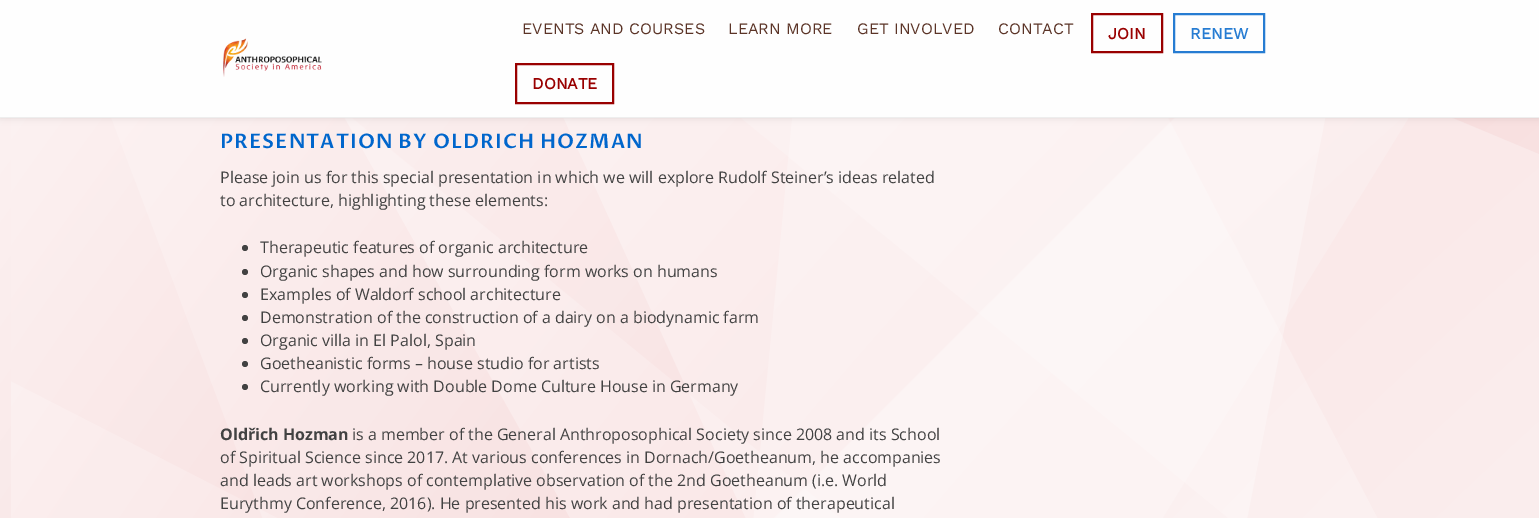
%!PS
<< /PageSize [1539 518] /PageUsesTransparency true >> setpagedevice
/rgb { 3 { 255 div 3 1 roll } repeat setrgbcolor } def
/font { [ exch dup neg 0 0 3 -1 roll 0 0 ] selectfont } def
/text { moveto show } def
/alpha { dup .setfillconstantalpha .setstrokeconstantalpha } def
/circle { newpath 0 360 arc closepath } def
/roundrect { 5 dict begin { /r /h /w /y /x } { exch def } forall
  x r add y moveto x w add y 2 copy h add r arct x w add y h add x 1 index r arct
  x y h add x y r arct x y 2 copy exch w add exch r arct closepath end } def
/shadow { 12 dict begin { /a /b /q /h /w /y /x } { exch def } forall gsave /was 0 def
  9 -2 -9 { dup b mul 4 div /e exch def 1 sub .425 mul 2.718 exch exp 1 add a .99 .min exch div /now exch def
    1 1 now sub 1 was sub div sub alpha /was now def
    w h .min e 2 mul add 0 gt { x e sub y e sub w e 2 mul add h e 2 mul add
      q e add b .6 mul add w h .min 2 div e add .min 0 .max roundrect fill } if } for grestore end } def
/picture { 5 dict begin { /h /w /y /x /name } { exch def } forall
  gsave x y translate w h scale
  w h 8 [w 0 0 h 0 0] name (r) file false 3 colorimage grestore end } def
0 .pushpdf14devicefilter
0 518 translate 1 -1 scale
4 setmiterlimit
255 255 255 rgb
0 0 1539 518 rectfill
gsave 0 118 moveto 1539 0 rlineto 0 400 rlineto -1539 0 rlineto closepath clip newpath 3848 3965 translate 5441 6300 scale
<< /ShadingType 3 /ColorSpace /DeviceRGB /Coords [0 0 0 0 0 1] /Extend [true true] /Function << /FunctionType 3 /Domain [0 1] /Functions [<< /FunctionType 2 /Domain [0 1] /C0 [0.996 0.996 0.996] /C1 [1 0.906 0.753] /N 1 >> << /FunctionType 2 /Domain [0 1] /C0 [1 0.906 0.753] /C1 [0.996 0.996 0.996] /N 1 >> << /FunctionType 2 /Domain [0 1] /C0 [0.996 0.996 0.996] /C1 [0.957 0.808 0.808] /N 1 >> << /FunctionType 2 /Domain [0 1] /C0 [0.957 0.808 0.808] /C1 [0.996 0.996 0.996] /N 1 >>] /Bounds [0.25 0.5 0.75] /Encode [0 1 0 1 0 1 0 1] >> >> shfill grestore
(img_01.rgb) 11 118 1528 400 picture
0 0 0 rgb
0 0 1539 118 0 3.5 0.1 shadow
254 254 254 rgb
0 0 1539 117 rectfill
238 238 238 rgb
0 117 1539 1 rectfill
(img_02.rgb) 223 38 99 39 picture
153 0 0 rgb
2 setlinewidth
1092 14 70 38 rectstroke
38 124 210 rgb
1174 14 90 38 rectstroke
153 0 0 rgb
516 64 97 39 rectstroke
66 66 66 rgb
245 248 3 circle fill
245 272 3 circle fill
245 295 3 circle fill
245 318 3 circle fill
245 341 3 circle fill
245 364 3 circle fill
245 387 3 circle fill
/WorkSans-Regular 16 font
91 52 39 rgb
(EVENTS AND COURSES) 522 34 text
(LEARN MORE) 728 34 text
(GET INVOLVED) 857 34 text
(CONTACT) 998 34 text
/WorkSans-Bold 16 font
153 0 0 rgb
(JOIN) 1108 39 text
38 124 210 rgb
(RENEW) 1190 39 text
153 0 0 rgb
(DONATE) 532 89 text
/ProzaLibre-SemiBold 20 font
0 102 204 rgb
220 148 moveto 1 0 (PRESENTATION BY OLDRICH HOZMAN) ashow
/OpenSans-Regular 16 font
66 66 66 rgb
(Please join us for this special presentation in which we will explore Rudolf Steiner’s ideas related) 220 183 text
(to architecture, highlighting these elements:) 220 206 text
(Therapeutic features of organic architecture) 260 253 text
(Organic shapes and how surrounding form works on humans) 260 277 text
(Examples of Waldorf school architecture) 260 300 text
(Demonstration of the construction of a dairy on a biodynamic farm) 260 323 text
(Organic villa in El Palol, Spain) 260 346 text
(Goetheanistic forms – house studio for artists) 260 369 text
(Currently working with Double Dome Culture House in Germany) 260 392 text
/OpenSans-Bold 16 font
(Oldřich Hozman) 220 440 text
/OpenSans-Regular 16 font
(is a member of the General Anthroposophical Society since 2008 and its School) 352 440 text
(of Spiritual Science since 2017. At various conferences in Dornach/Goetheanum, he accompanies) 220 463 text
(and leads art workshops of contemplative observation of the 2nd Goetheanum \(i.e. World) 220 486 text
(Eurythmy Conference, 2016\). He presented his work and had presentation of therapeutical) 220 509 text
.poppdf14devicefilter showpage
